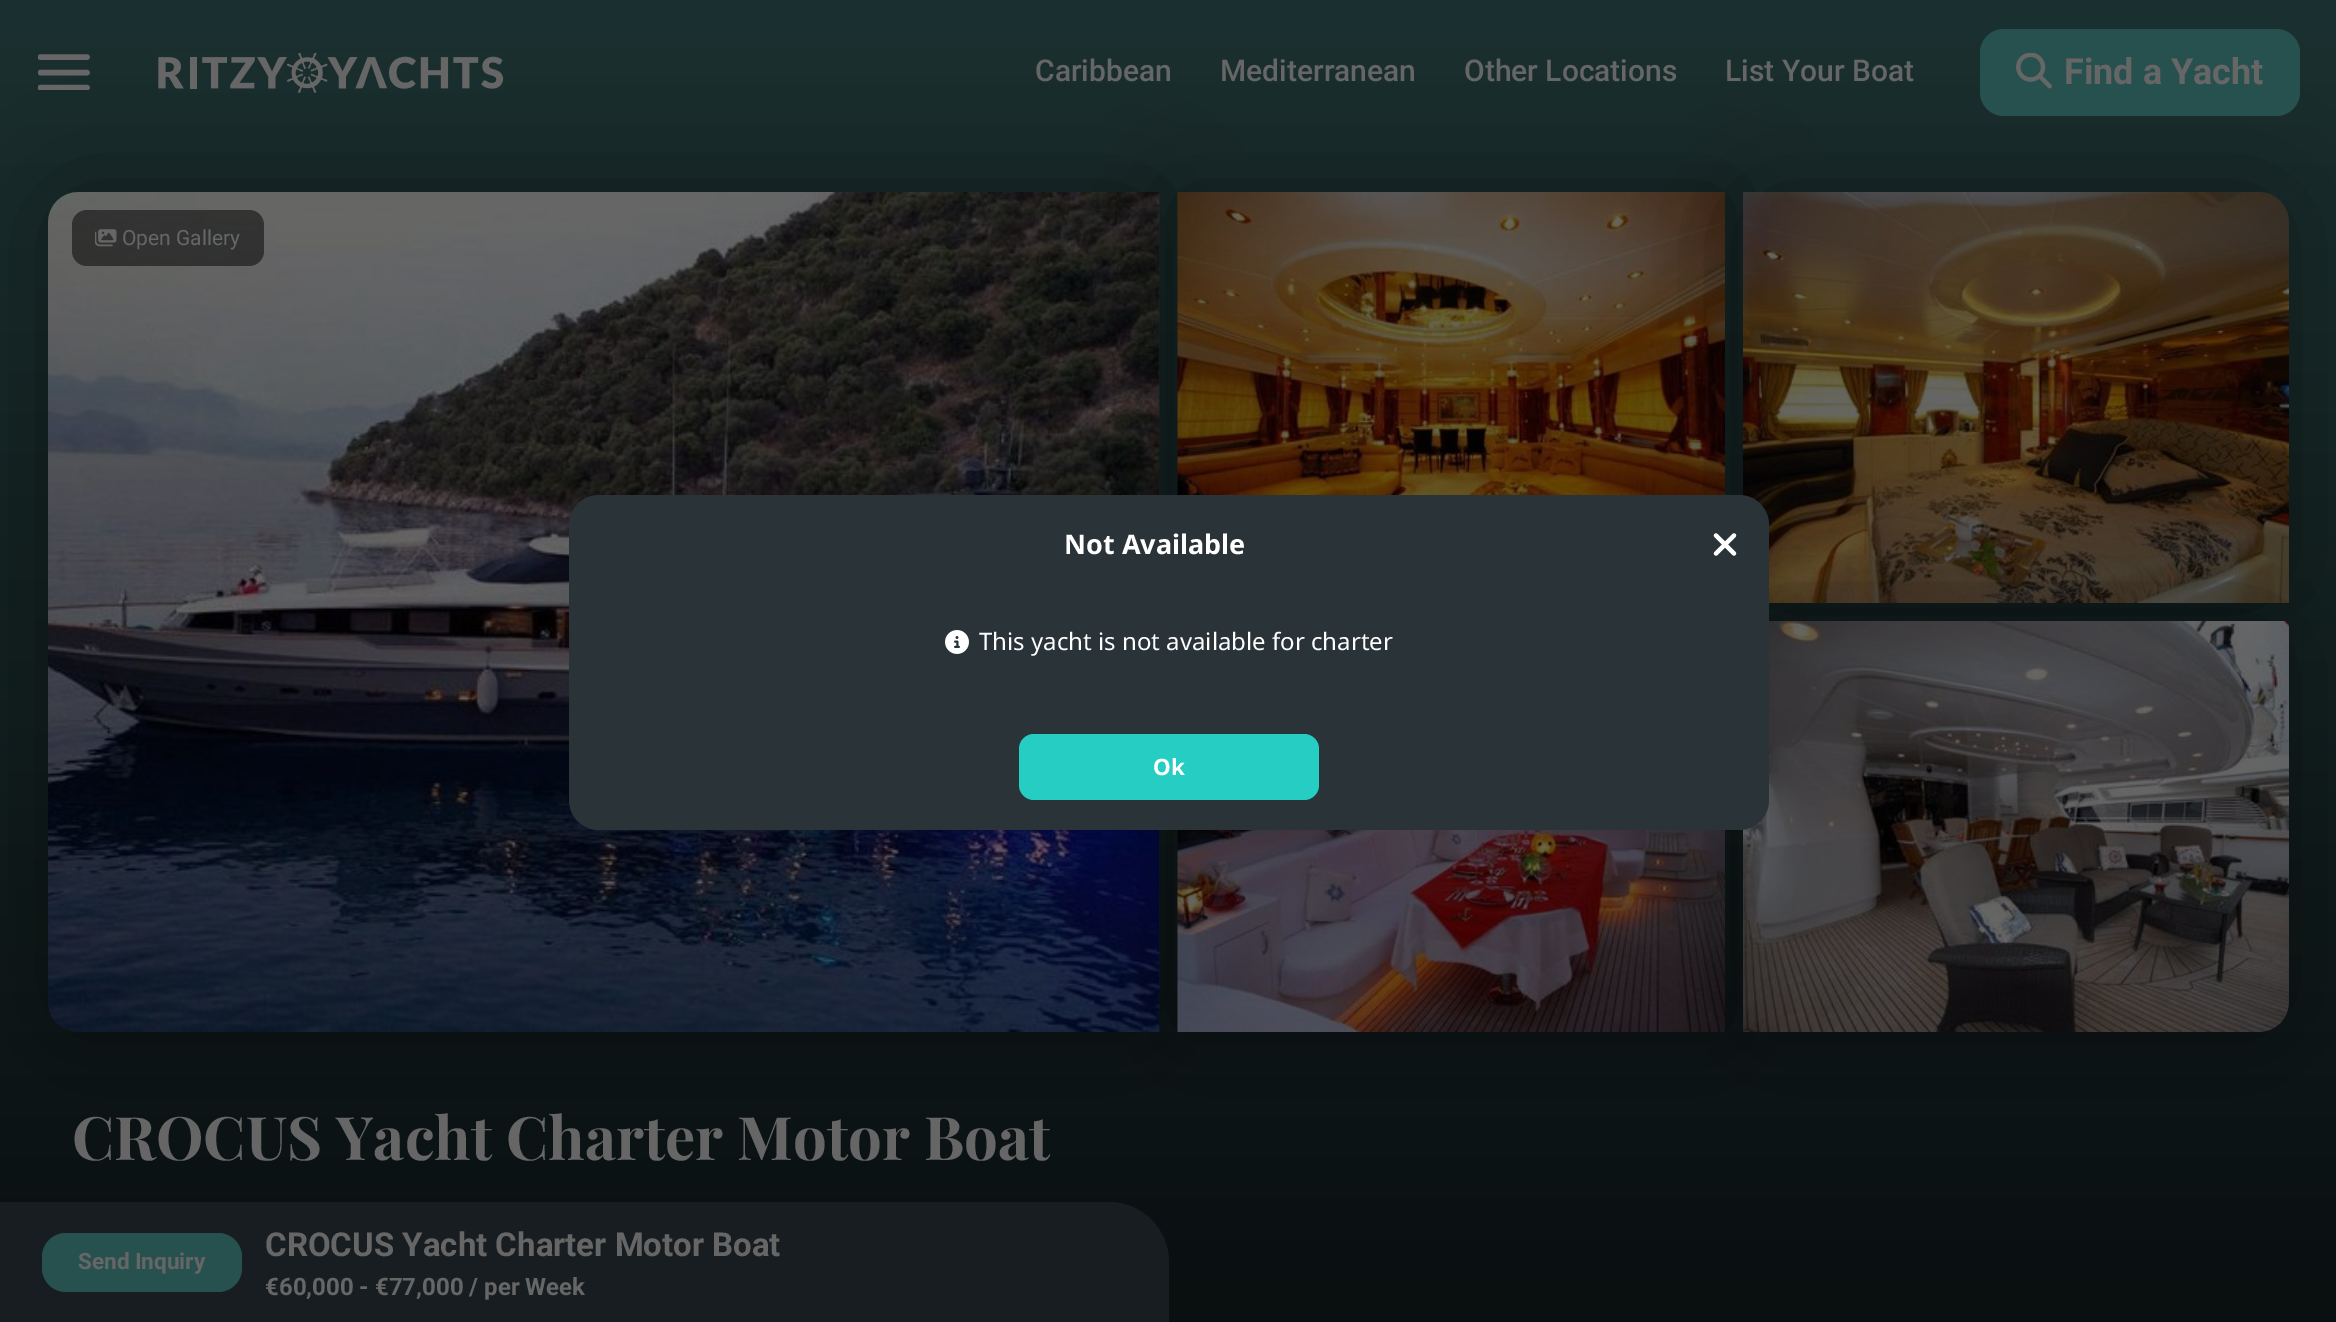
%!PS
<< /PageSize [2336 1322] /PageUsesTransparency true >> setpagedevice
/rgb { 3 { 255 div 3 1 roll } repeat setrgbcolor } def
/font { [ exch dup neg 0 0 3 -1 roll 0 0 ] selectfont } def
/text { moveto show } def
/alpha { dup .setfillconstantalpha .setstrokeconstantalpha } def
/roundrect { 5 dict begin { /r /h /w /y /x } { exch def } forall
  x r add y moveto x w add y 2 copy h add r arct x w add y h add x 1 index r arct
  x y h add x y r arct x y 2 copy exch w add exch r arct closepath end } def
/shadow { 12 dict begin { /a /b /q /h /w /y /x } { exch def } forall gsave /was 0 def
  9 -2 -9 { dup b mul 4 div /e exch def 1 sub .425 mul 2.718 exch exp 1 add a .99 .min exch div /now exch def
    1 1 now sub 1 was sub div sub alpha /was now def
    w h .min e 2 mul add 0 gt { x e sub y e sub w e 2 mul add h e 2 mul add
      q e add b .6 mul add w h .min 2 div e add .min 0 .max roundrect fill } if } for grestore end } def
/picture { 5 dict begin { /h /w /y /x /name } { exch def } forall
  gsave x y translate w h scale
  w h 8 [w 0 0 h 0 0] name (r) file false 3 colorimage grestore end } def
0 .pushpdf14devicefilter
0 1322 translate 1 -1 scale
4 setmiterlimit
255 255 255 rgb
0 0 2336 1322 rectfill
gsave 0 0 moveto 2336 0 rlineto 0 1322 rlineto -2336 0 rlineto closepath clip newpath
<< /ShadingType 2 /ColorSpace /DeviceRGB /Coords [1169 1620 1169 0] /Extend [true true] /Function << /FunctionType 2 /Domain [0 1] /C0 [0.024 0.031 0.035] /C1 [0.106 0.188 0.188] /N 1 >> >> shfill grestore
0 0 0 rgb
48 192 1112 840 30 52.5 0.4 shadow
gsave
38 54 52 36 rectclip
102 102 102 rgb
5.6 setlinewidth
1 setlinecap
1 setlinejoin
40.5 87.5 moveto 46.5 0 rlineto 40.5 72.5 moveto 46.5 0 rlineto 40.5 57 moveto 46.5 0 rlineto stroke
grestore
(img_01.rgb) 158 53 346 40 picture
(img_03.rgb) 48 192 1112 840 picture
1178 192 547 411 0 52.5 0.4 shadow
(img_04.rgb) 1177 192 548 303 picture
1743 192 546 411 30 52.5 0.4 shadow
39 81 78 rgb
1980 29 320 87 24 roundrect fill
(img_02.rgb) 2016 53 36 36 picture
(img_05.rgb) 1743 192 546 411 picture
0.5 alpha
0 0 0 rgb
72 210 192 56 15 roundrect fill
1 alpha
(img_06.rgb) 95 229 22 18 picture
1178 621 547 411 0 52.5 0.4 shadow
(img_07.rgb) 1177 830 548 202 picture
1743 621 546 411 30 52.5 0.4 shadow
(img_08.rgb) 1743 621 546 411 picture
23 29 32 rgb
0 1202 moveto 1109 0 rlineto 33 0 60 27 60 60 rcurveto 0 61 rlineto -1169 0 rlineto closepath fill
39 81 78 rgb
42 1233 200 59 24 roundrect fill
41 51 56 rgb
569 495 1200 335 30 roundrect fill
(img_09.rgb) 1713 533 24 23 picture
(img_10.rgb) 945 630 24 24 picture
38 205 195 rgb
1019 734 300 66 15 roundrect fill
/Roboto-Medium 30 font
102 102 102 rgb
(Caribbean) 1035 81 text
(Mediterranean) 1220 81 text
(Other Locations) 1464 81 text
(List Your Boat) 1725 81 text
/Roboto-Bold 36 font
(Find a Yacht) 2064 84 text
/Roboto-Regular 21 font
(Open Gallery) 122 245 text
/PlayfairDisplay-Bold 60 font
(CROCUS Yacht Charter Motor Boat) 72 1160 text
/Roboto-Bold 22.5 font
(Send Inquiry) 78 1269 text
/Roboto-Bold 33 font
(CROCUS Yacht Charter Motor Boat) 265 1256 text
/Roboto-Bold 24 font
(€60,000 - €77,000 / per Week) 265 1295 text
/NotoSans-Bold 27 font
255 255 255 rgb
(Not Available) 1064 554 text
/NotoSans-Regular 24 font
(This yacht is not available for charter) 979 650 text
/NotoSans-Bold 22.5 font
(Ok) 1153 775 text
.poppdf14devicefilter showpage
